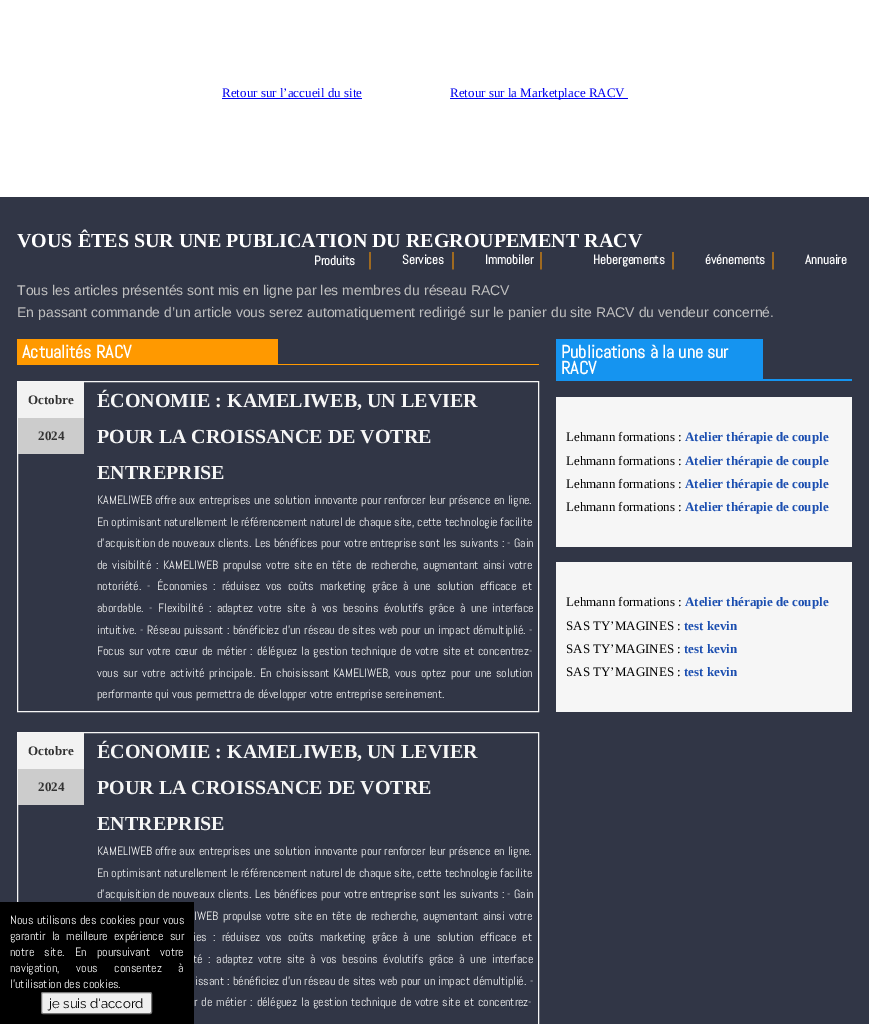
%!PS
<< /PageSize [869 1024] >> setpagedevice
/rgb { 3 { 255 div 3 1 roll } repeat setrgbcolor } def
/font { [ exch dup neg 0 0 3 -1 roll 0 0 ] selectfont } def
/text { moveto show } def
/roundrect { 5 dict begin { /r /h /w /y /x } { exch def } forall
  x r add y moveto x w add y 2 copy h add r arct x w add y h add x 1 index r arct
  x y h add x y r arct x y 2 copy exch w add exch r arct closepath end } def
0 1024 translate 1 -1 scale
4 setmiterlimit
255 255 255 rgb
0 0 869 1024 rectfill
0 0 238 rgb
222 98 140 1 rectfill
450 98 178 1 rectfill
49 54 70 rgb
0 197 869 827 rectfill
255 153 0 rgb
17 339 261 26 rectfill
278 364 261 1 rectfill
246 246 246 rgb
17.5 381.5 521 330 rectstroke
242 242 242 rgb
18 382 66 36 rectfill
204 204 204 rgb
18 418 66 36 rectfill
246 246 246 rgb
17.5 732.5 521 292 rectstroke
242 242 242 rgb
18 733 66 36 rectfill
204 204 204 rgb
18 769 66 36 rectfill
21 148 240 rgb
556 339 207 42 rectfill
763 379 89 2 rectfill
246 246 246 rgb
556 397 296 150 rectfill
556 562 296 150 rectfill
/LiberationSerif-Regular 13 font
0 0 238 rgb
(Retour sur l’accueil du site) 222 97 text
(Retour sur la Marketplace RACV) 450 97 text
/LiberationSerif-Bold 20 font
255 255 255 rgb
(VOUS ÊTES SUR UNE PUBLICATION DU REGROUPEMENT RACV) 17 247 text
/Abel-Bold 13 font
(Produits) 314 265 text
/Abel-Regular 18 font
255 153 0 rgb
(|) 368 266 text
/Abel-Bold 13 font
255 255 255 rgb
(Services) 402 264 text
/Abel-Regular 18 font
255 153 0 rgb
(|) 451 266 text
/Abel-Bold 13 font
255 255 255 rgb
(Immobiler) 485 264 text
/Abel-Regular 18 font
255 153 0 rgb
(|) 539 266 text
/Abel-Bold 13 font
255 255 255 rgb
(Hebergements) 593 264 text
/Abel-Regular 18 font
255 153 0 rgb
(|) 671 266 text
/Abel-Bold 13 font
255 255 255 rgb
(événements) 705 264 text
/Abel-Regular 18 font
255 153 0 rgb
(|) 771 266 text
/Abel-Bold 13 font
255 255 255 rgb
(Annuaire) 805 264 text
/LiberationSans-Regular 14 font
192 192 192 rgb
(Tous les articles présentés sont mis en ligne par les membres du réseau RACV) 17 295 text
(En passant commande d’un article vous serez automatiquement redirigé sur le panier du site RACV du vendeur concerné.) 17 317 text
/Abel-Bold 18 font
255 255 255 rgb
(Actualités RACV) 22 358 text
/LiberationSerif-Bold 13 font
51 51 51 rgb
(Octobre) 28 404 text
(2024) 38 440 text
/LiberationSerif-Bold 20 font
246 246 246 rgb
(ÉCONOMIE : KAMELIWEB, UN LEVIER) 97 407 text
(POUR LA CROISSANCE DE VOTRE) 97 443 text
(ENTREPRISE) 97 479 text
/Abel-Regular 12 font
(KAMELIWEB) 97 504 text
155 504 moveto 0.5 0 32 (offre aux entreprises une solution innovante pour renforcer leur présence en ligne.) widthshow
(En optimisant naturellement le référencement naturel de chaque site, cette technologie facilite) 97 526 text
97 547 moveto 0.25 0 32 (d’acquisition de nouveaux clients. Les bénéfices pour votre entreprise sont les suivants : - Gain) widthshow
97 569 moveto 1.75 0 32 (de visibilité :) widthshow
(KAMELIWEB) 163 569 text
223 569 moveto 1.75 0 32 (propulse votre site en tête de recherche, augmentant ainsi votre) widthshow
97 590 moveto 3.25 0 32 (notoriété. -) widthshow
(Économies) 157 590 text
213 590 moveto 3.25 0 32 (: réduisez vos coûts marketing grâce à une solution efficace et) widthshow
97 612 moveto 2.75 0 32 (abordable. - Flexibilité : adaptez votre site à vos besoins évolutifs grâce à une interface) widthshow
97 634 moveto 0.5 0 32 (intuitive. - Réseau puissant : bénéficiez d’un réseau de sites web pour un impact démultiplié. -) widthshow
97 655 moveto 1.25 0 32 (Focus sur votre cœur de métier : déléguez la gestion technique de votre site et concentrez-) widthshow
97 677 moveto 1.75 0 32 (vous sur votre activité principale. En choisissant) widthshow
(KAMELIWEB) 333 677 text
388 677 moveto 1.75 0 32 (, vous optez pour une solution) widthshow
(performante qui vous permettra de développer votre entreprise sereinement.) 97 698 text
/LiberationSerif-Bold 13 font
51 51 51 rgb
(Octobre) 28 755 text
(2024) 38 791 text
/LiberationSerif-Bold 20 font
246 246 246 rgb
(ÉCONOMIE : KAMELIWEB, UN LEVIER) 97 758 text
(POUR LA CROISSANCE DE VOTRE) 97 794 text
(ENTREPRISE) 97 830 text
/Abel-Regular 12 font
(KAMELIWEB) 97 855 text
155 855 moveto 0.5 0 32 (offre aux entreprises une solution innovante pour renforcer leur présence en ligne.) widthshow
(En optimisant naturellement le référencement naturel de chaque site, cette technologie facilite) 97 877 text
97 898 moveto 0.25 0 32 (d’acquisition de nouveaux clients. Les bénéfices pour votre entreprise sont les suivants : - Gain) widthshow
(IWEB) 194 920 text
223 920 moveto 1.75 0 32 (propulse votre site en tête de recherche, augmentant ainsi votre) widthshow
(ies) 193 941 text
213 941 moveto 3.25 0 32 (: réduisez vos coûts marketing grâce à une solution efficace et) widthshow
193 963 moveto 2.75 0 32 (té : adaptez votre site à vos besoins évolutifs grâce à une interface) widthshow
195 985 moveto 0.5 0 32 (issant : bénéficiez d’un réseau de sites web pour un impact démultiplié. -) widthshow
194 1006 moveto 1.25 0 32 (r de métier : déléguez la gestion technique de votre site et concentrez-) widthshow
/Abel-Bold 18 font
255 255 255 rgb
(Publications à la une sur) 561 358 text
(RACV) 561 374 text
/LiberationSerif-Regular 13 font
0 0 0 rgb
(Lehmann formations :) 566 441 text
/LiberationSerif-Bold 13 font
27 78 176 rgb
(Atelier thérapie de couple) 685 441 text
/LiberationSerif-Regular 13 font
0 0 0 rgb
(Lehmann formations :) 566 465 text
/LiberationSerif-Bold 13 font
27 78 176 rgb
(Atelier thérapie de couple) 685 465 text
/LiberationSerif-Regular 13 font
0 0 0 rgb
(Lehmann formations :) 566 488 text
/LiberationSerif-Bold 13 font
27 78 176 rgb
(Atelier thérapie de couple) 685 488 text
/LiberationSerif-Regular 13 font
0 0 0 rgb
(Lehmann formations :) 566 511 text
/LiberationSerif-Bold 13 font
27 78 176 rgb
(Atelier thérapie de couple) 685 511 text
/LiberationSerif-Regular 13 font
0 0 0 rgb
(Lehmann formations :) 566 606 text
/LiberationSerif-Bold 13 font
27 78 176 rgb
(Atelier thérapie de couple) 685 606 text
/LiberationSerif-Regular 13 font
0 0 0 rgb
(SAS TY’MAGINES :) 566 630 text
/LiberationSerif-Bold 13 font
27 78 176 rgb
(test kevin) 684 630 text
/LiberationSerif-Regular 13 font
0 0 0 rgb
(SAS TY’MAGINES :) 566 653 text
/LiberationSerif-Bold 13 font
27 78 176 rgb
(test kevin) 684 653 text
/LiberationSerif-Regular 13 font
0 0 0 rgb
(SAS TY’MAGINES :) 566 676 text
/LiberationSerif-Bold 13 font
27 78 176 rgb
(test kevin) 684 676 text
0 0 0 rgb
0 902 194 122 rectfill
/Abel-Regular 12 font
255 255 255 rgb
10 924 moveto 1 0 32 (Nous utilisons des cookies pour vous) widthshow
10 940 moveto 3.5 0 32 (garantir la meilleure expérience sur) widthshow
10 956 moveto 7.5 0 32 (notre site. En poursuivant votre) widthshow
10 972 moveto 14 0 32 (navigation, vous consentez à) widthshow
(l'utilisation des cookies.) 10 988 text
239 239 239 rgb
41.5 992.5 110 21 1.5 roundrect gsave fill grestore
118 118 118 rgb
stroke
/Raleway-Regular 13.25 font
0 0 0 rgb
(je suis d'accord) 49 1008 text
showpage
